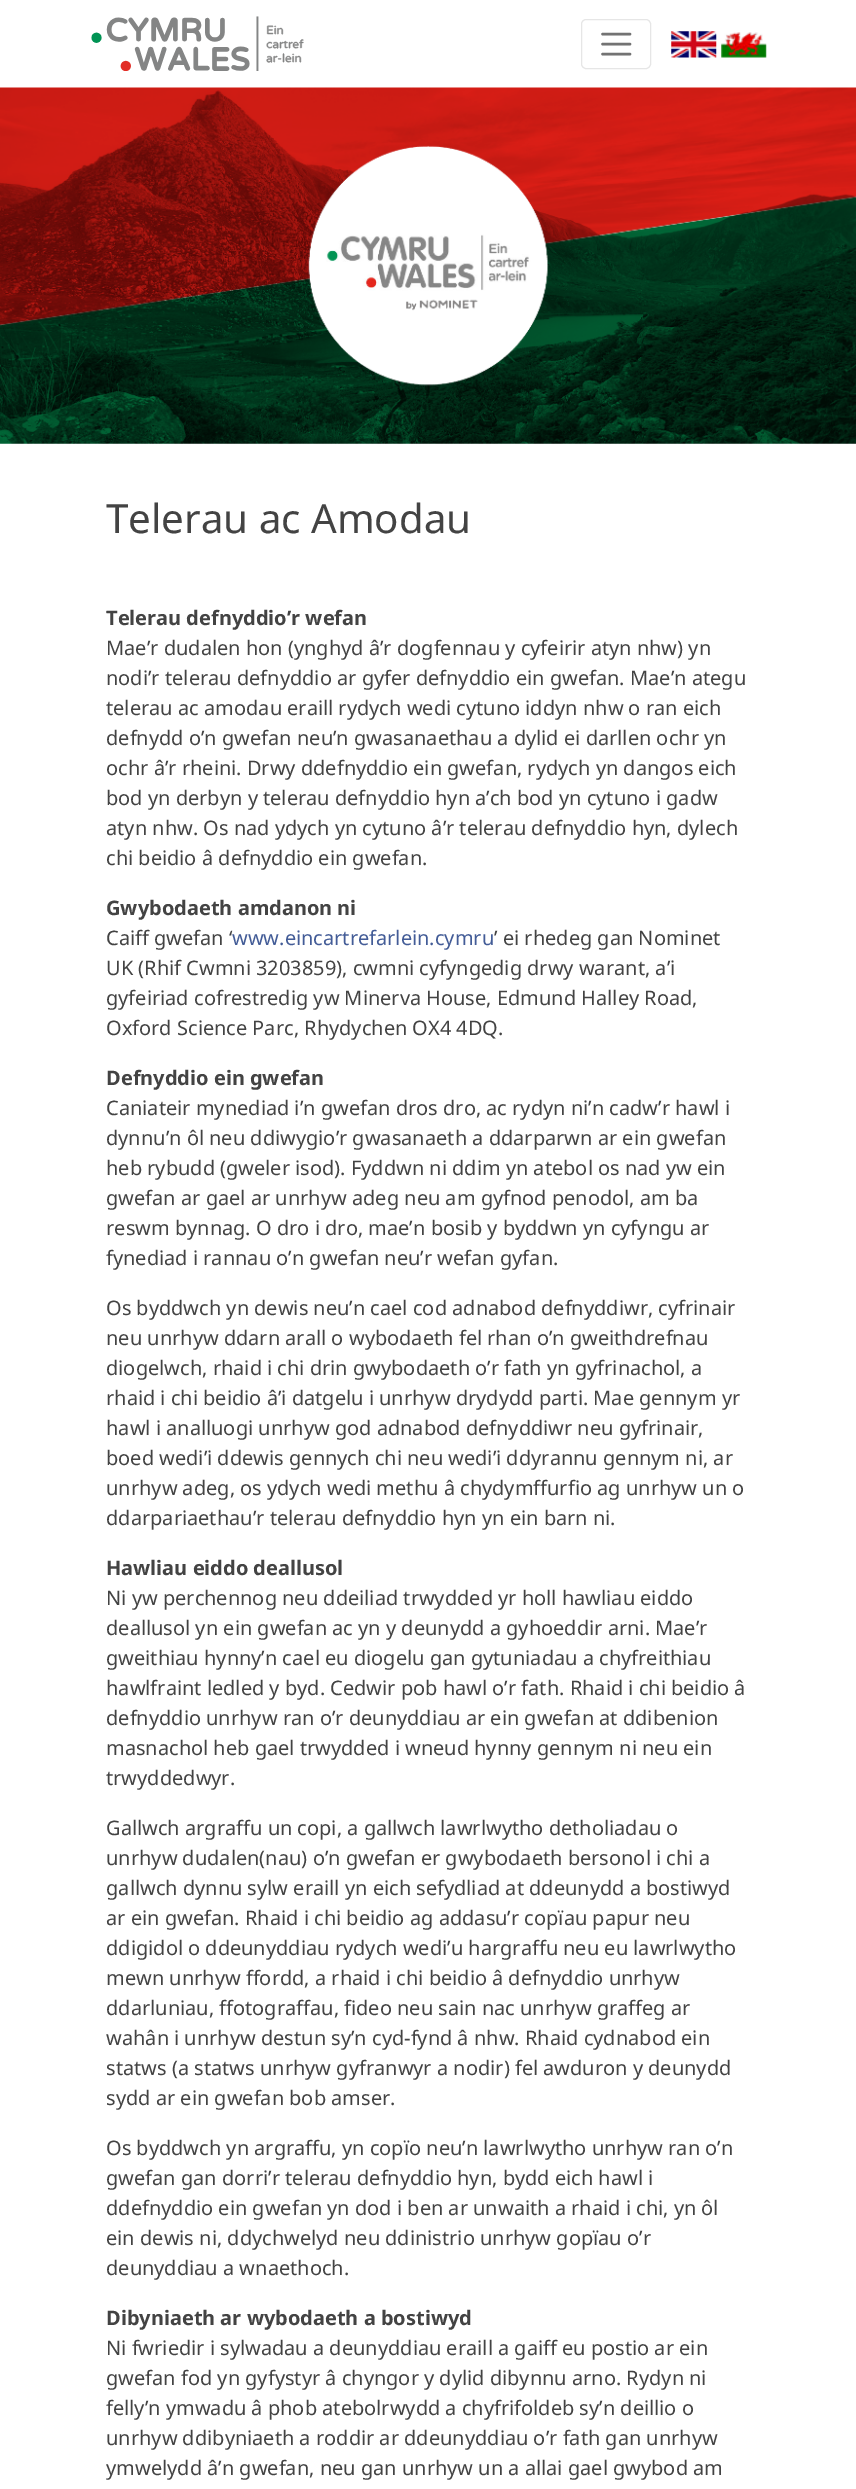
%!PS
<< /PageSize [856 2489] >> setpagedevice
/rgb { 3 { 255 div 3 1 roll } repeat setrgbcolor } def
/font { [ exch dup neg 0 0 3 -1 roll 0 0 ] selectfont } def
/text { moveto show } def
/roundrect { 5 dict begin { /r /h /w /y /x } { exch def } forall
  x r add y moveto x w add y 2 copy h add r arct x w add y h add x 1 index r arct
  x y h add x y r arct x y 2 copy exch w add exch r arct closepath end } def
/picture { 5 dict begin { /h /w /y /x /name } { exch def } forall
  gsave x y translate w h scale
  w h 8 [w 0 0 h 0 0] name (r) file false 3 colorimage grestore end } def
0 2489 translate 1 -1 scale
4 setmiterlimit
255 255 255 rgb
0 0 856 2489 rectfill
(img_01.rgb) 91 16 213 55 picture
230 230 230 rgb
581.5 19.5 69 49 4.5 roundrect stroke
115 115 115 rgb
2.5 setlinewidth
1 setlinecap
602.5 34 moveto 27.5 0 rlineto 602.5 44 moveto 27.5 0 rlineto 602.5 54 moveto 27.5 0 rlineto stroke
(img_02.rgb) 671 31 46 27 picture
(img_03.rgb) 721 32 46 26 picture
(img_04.rgb) 0 87 856 357 picture
/NotoSans-Regular 40.25 font
67 67 67 rgb
(Telerau ac Amodau) 106 533 text
/NotoSans-Bold 20 font
(Telerau defnyddio’r wefan) 106 625 text
/NotoSans-Regular 20 font
(Mae’r dudalen hon \(ynghyd â’r dogfennau y cyfeirir atyn nhw\) yn) 106 655 text
(nodi’r telerau defnyddio ar gyfer defnyddio ein gwefan. Mae’n ategu) 106 685 text
(telerau ac amodau eraill rydych wedi cytuno iddyn nhw o ran eich) 106 715 text
(defnydd o’n gwefan neu’n gwasanaethau a dylid ei darllen ochr yn) 106 745 text
(ochr â’r rheini. Drwy ddefnyddio ein gwefan, rydych yn dangos eich) 106 775 text
(bod yn derbyn y telerau defnyddio hyn a’ch bod yn cytuno i gadw) 106 805 text
(atyn nhw. Os nad ydych yn cytuno â’r telerau defnyddio hyn, dylech) 106 835 text
(chi beidio â defnyddio ein gwefan.) 106 865 text
/NotoSans-Bold 20 font
(Gwybodaeth amdanon ni) 106 915 text
/NotoSans-Regular 20 font
(Caiff gwefan ‘) 106 945 text
67 92 151 rgb
(www.eincartrefarlein.cymru) 232 945 text
67 67 67 rgb
(’ ei rhedeg gan Nominet) 494 945 text
(UK \(Rhif Cwmni 3203859\), cwmni cyfyngedig drwy warant, a’i) 106 975 text
(gyfeiriad cofrestredig yw Minerva House, Edmund Halley Road,) 106 1005 text
(Oxford Science Parc, Rhydychen OX4 4DQ.) 106 1035 text
/NotoSans-Bold 20 font
(Defnyddio ein gwefan) 106 1085 text
/NotoSans-Regular 20 font
(Caniateir mynediad i’n gwefan dros dro, ac rydyn ni’n cadw’r hawl i) 106 1115 text
(dynnu’n ôl neu ddiwygio’r gwasanaeth a ddarparwn ar ein gwefan) 106 1145 text
(heb rybudd \(gweler isod\). Fyddwn ni ddim yn atebol os nad yw ein) 106 1175 text
(gwefan ar gael ar unrhyw adeg neu am gyfnod penodol, am ba) 106 1205 text
(reswm bynnag. O dro i dro, mae’n bosib y byddwn yn cyfyngu ar) 106 1235 text
(fynediad i rannau o’n gwefan neu’r wefan gyfan.) 106 1265 text
(Os byddwch yn dewis neu’n cael cod adnabod defnyddiwr, cyfrinair) 106 1315 text
(neu unrhyw ddarn arall o wybodaeth fel rhan o’n gweithdrefnau) 106 1345 text
(diogelwch, rhaid i chi drin gwybodaeth o’r fath yn gyfrinachol, a) 106 1375 text
(rhaid i chi beidio â’i datgelu i unrhyw drydydd parti. Mae gennym yr) 106 1405 text
(hawl i analluogi unrhyw god adnabod defnyddiwr neu gyfrinair,) 106 1435 text
(boed wedi’i ddewis gennych chi neu wedi’i ddyrannu gennym ni, ar) 106 1465 text
(unrhyw adeg, os ydych wedi methu â chydymffurfio ag unrhyw un o) 106 1495 text
(ddarpariaethau’r telerau defnyddio hyn yn ein barn ni.) 106 1525 text
/NotoSans-Bold 20 font
(Hawliau eiddo deallusol) 106 1575 text
/NotoSans-Regular 20 font
(Ni yw perchennog neu ddeiliad trwydded yr holl hawliau eiddo) 106 1605 text
(deallusol yn ein gwefan ac yn y deunydd a gyhoeddir arni. Mae’r) 106 1635 text
(gweithiau hynny’n cael eu diogelu gan gytuniadau a chyfreithiau) 106 1665 text
(hawlfraint ledled y byd. Cedwir pob hawl o’r fath. Rhaid i chi beidio â) 106 1695 text
(defnyddio unrhyw ran o’r deunyddiau ar ein gwefan at ddibenion) 106 1725 text
(masnachol heb gael trwydded i wneud hynny gennym ni neu ein) 106 1755 text
(trwyddedwyr.) 106 1785 text
(Gallwch argraffu un copi, a gallwch lawrlwytho detholiadau o) 106 1835 text
(unrhyw dudalen\(nau\) o’n gwefan er gwybodaeth bersonol i chi a) 106 1865 text
(gallwch dynnu sylw eraill yn eich sefydliad at ddeunydd a bostiwyd) 106 1895 text
(ar ein gwefan. Rhaid i chi beidio ag addasu’r copïau papur neu) 106 1925 text
(ddigidol o ddeunyddiau rydych wedi’u hargraffu neu eu lawrlwytho) 106 1955 text
(mewn unrhyw ffordd, a rhaid i chi beidio â defnyddio unrhyw) 106 1985 text
(ddarluniau, ffotograffau, fideo neu sain nac unrhyw graffeg ar) 106 2015 text
(wahân i unrhyw destun sy’n cyd-fynd â nhw. Rhaid cydnabod ein) 106 2045 text
(statws \(a statws unrhyw gyfranwyr a nodir\) fel awduron y deunydd) 106 2075 text
(sydd ar ein gwefan bob amser.) 106 2105 text
(Os byddwch yn argraffu, yn copïo neu’n lawrlwytho unrhyw ran o’n) 106 2155 text
(gwefan gan dorri’r telerau defnyddio hyn, bydd eich hawl i) 106 2185 text
(ddefnyddio ein gwefan yn dod i ben ar unwaith a rhaid i chi, yn ôl) 106 2215 text
(ein dewis ni, ddychwelyd neu ddinistrio unrhyw gopïau o’r) 106 2245 text
(deunyddiau a wnaethoch.) 106 2275 text
/NotoSans-Bold 20 font
(Dibyniaeth ar wybodaeth a bostiwyd) 106 2325 text
/NotoSans-Regular 20 font
(Ni fwriedir i sylwadau a deunyddiau eraill a gaiff eu postio ar ein) 106 2355 text
(gwefan fod yn gyfystyr â chyngor y dylid dibynnu arno. Rydyn ni) 106 2385 text
(felly’n ymwadu â phob atebolrwydd a chyfrifoldeb sy’n deillio o) 106 2415 text
(unrhyw ddibyniaeth a roddir ar ddeunyddiau o’r fath gan unrhyw) 106 2445 text
(ymwelydd â’n gwefan, neu gan unrhyw un a allai gael gwybod am) 106 2475 text
showpage
